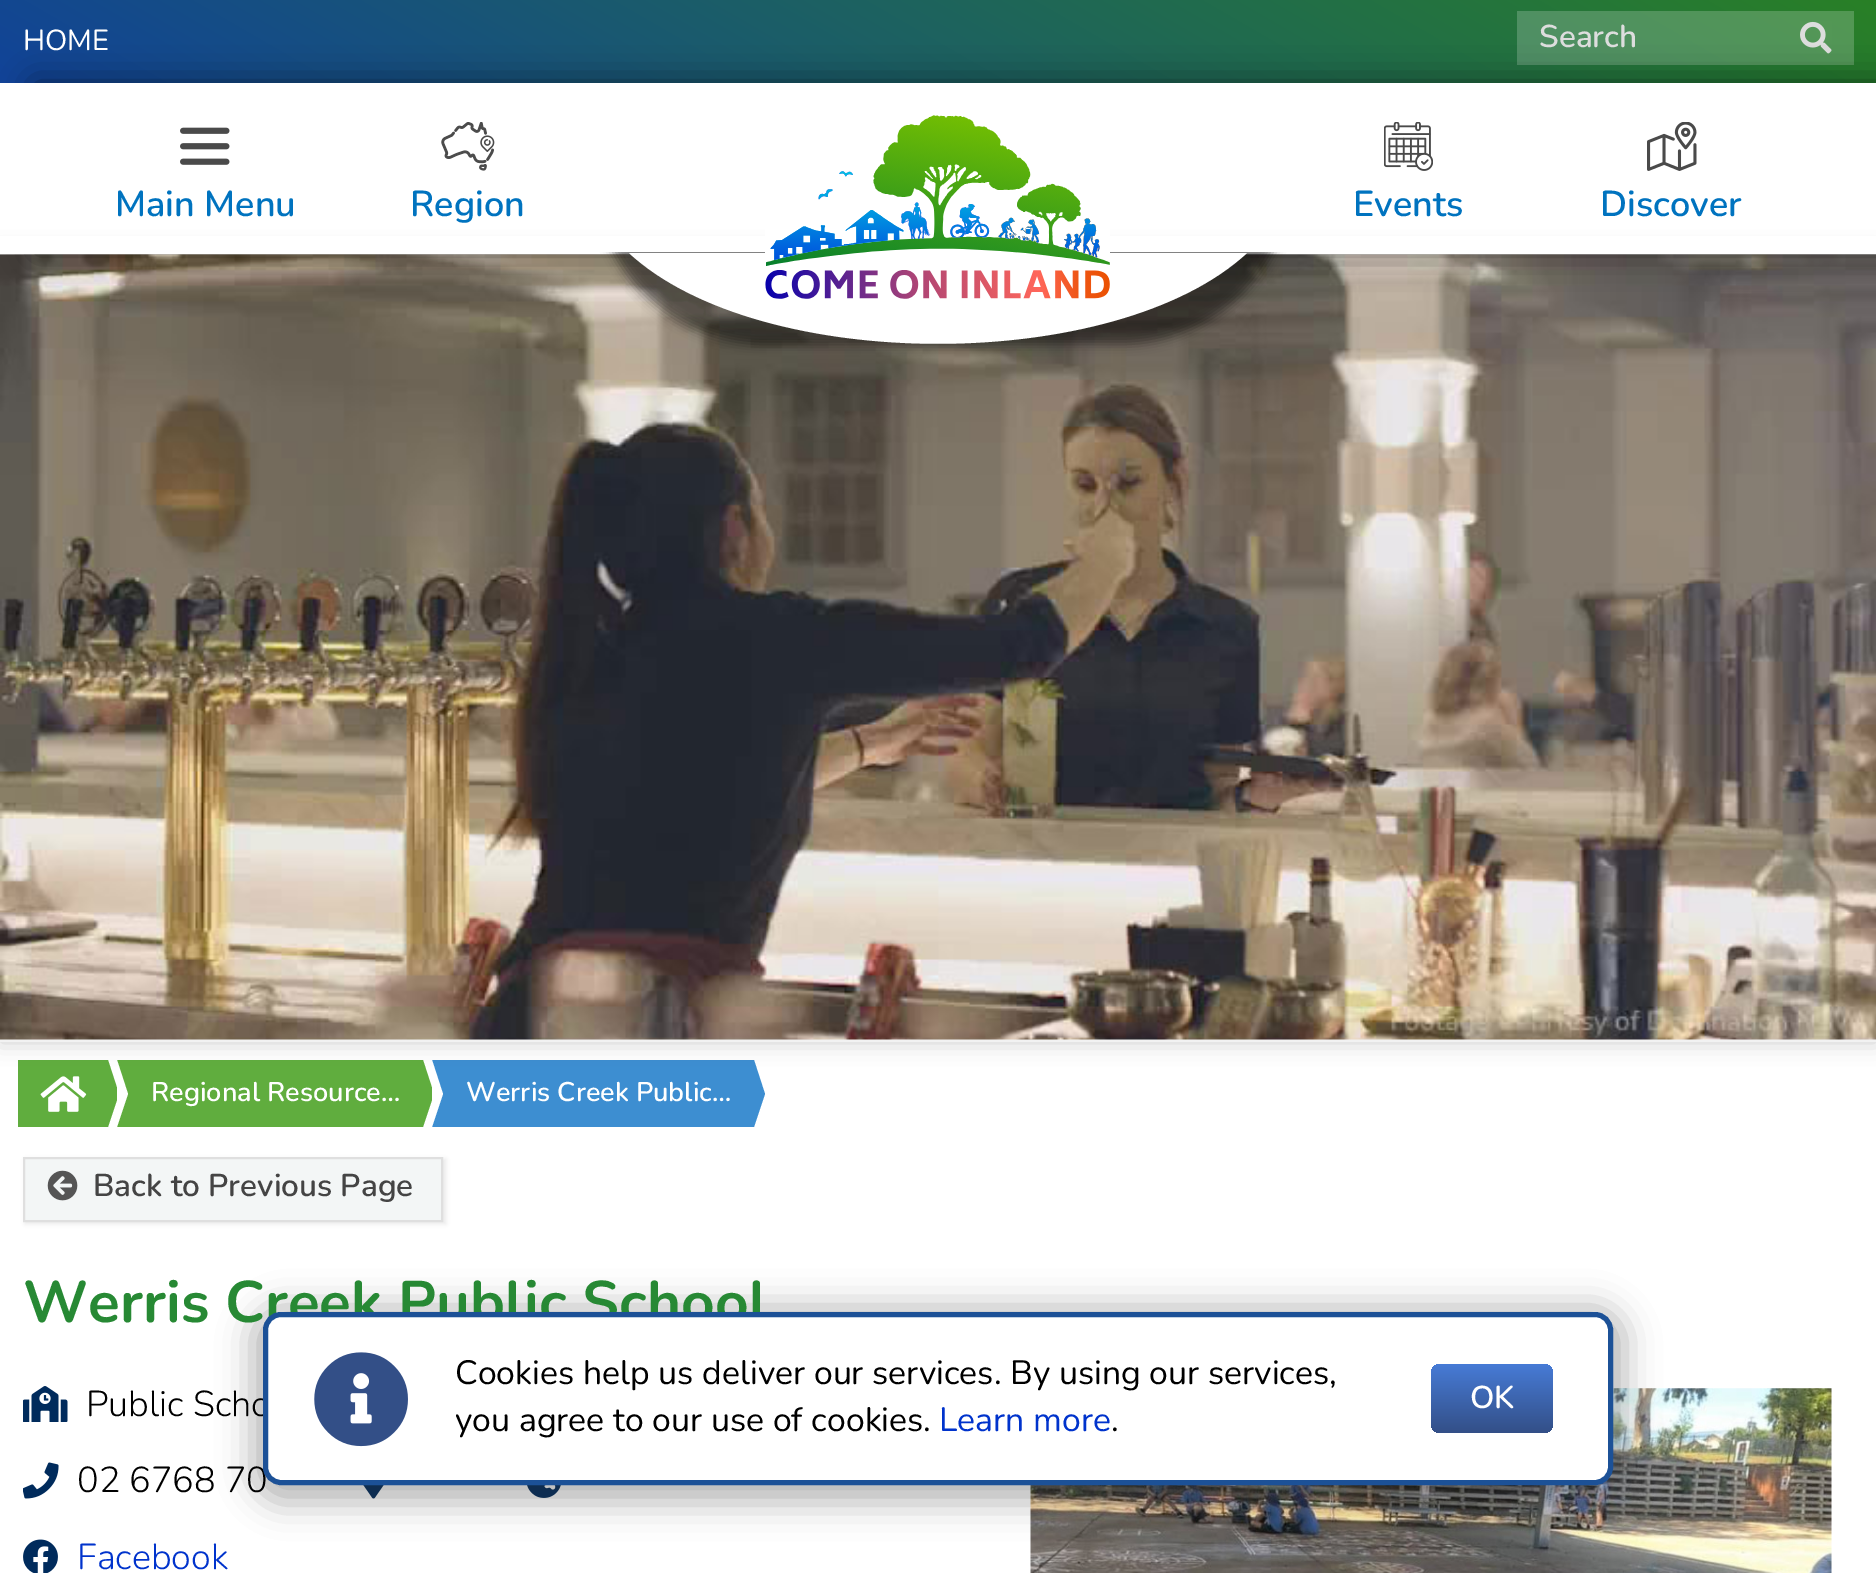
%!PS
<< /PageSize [1876 1573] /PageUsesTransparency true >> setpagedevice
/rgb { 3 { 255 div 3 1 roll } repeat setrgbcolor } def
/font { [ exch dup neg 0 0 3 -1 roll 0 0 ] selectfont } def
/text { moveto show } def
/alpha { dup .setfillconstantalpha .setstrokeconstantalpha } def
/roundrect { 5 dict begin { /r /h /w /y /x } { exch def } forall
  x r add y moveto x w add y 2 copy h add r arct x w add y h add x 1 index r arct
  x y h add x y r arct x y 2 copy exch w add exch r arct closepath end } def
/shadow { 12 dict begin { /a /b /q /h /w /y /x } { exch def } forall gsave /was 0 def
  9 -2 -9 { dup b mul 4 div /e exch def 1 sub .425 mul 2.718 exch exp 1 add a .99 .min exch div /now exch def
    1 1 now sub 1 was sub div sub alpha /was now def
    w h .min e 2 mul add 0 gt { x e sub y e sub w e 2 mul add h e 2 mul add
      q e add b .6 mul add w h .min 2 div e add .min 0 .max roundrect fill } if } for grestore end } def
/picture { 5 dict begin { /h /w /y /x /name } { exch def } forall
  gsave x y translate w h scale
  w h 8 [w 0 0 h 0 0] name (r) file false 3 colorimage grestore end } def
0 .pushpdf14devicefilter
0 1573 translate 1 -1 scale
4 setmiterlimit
255 255 255 rgb
0 0 1876 1573 rectfill
gsave 0 0 moveto 1876 0 rlineto 0 83 rlineto -1876 0 rlineto closepath clip newpath
<< /ShadingType 2 /ColorSpace /DeviceRGB /Coords [686 479 1191 -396] /Extend [true true] /Function << /FunctionType 2 /Domain [0 1] /C0 [0.067 0.263 0.6] /C1 [0.161 0.502 0.149] /N 1 >> >> shfill grestore
gsave 1517 11 moveto 337 0 rlineto 0 54 rlineto -337 0 rlineto closepath clip newpath
<< /ShadingType 2 /ColorSpace /DeviceRGB /Coords [686 479 1191 -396] /Extend [true true] /Function << /FunctionType 2 /Domain [0 1] /C0 [0.255 0.412 0.678] /C1 [0.329 0.6 0.318] /N 1 >> >> shfill grestore
(img_01.rgb) 1800 21 32 33 picture
96 173 62 rgb
18 1060 90 67 rectfill
108 1127 moveto 0 -67 rlineto 11 34 rlineto closepath fill
117 1060 306 67 rectfill
255 255 255 rgb
117 1127 moveto 0 -67 rlineto 11 34 rlineto closepath fill
96 173 62 rgb
423 1127 moveto 0 -67 rlineto 11 34 rlineto closepath fill
61 142 209 rgb
432 1060 322 67 rectfill
255 255 255 rgb
432 1127 moveto 0 -67 rlineto 11 34 rlineto closepath fill
61 142 209 rgb
754 1127 moveto 0 -67 rlineto 11 34 rlineto closepath fill
50 50 50 rgb
0 254 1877 788 0 11 0.25 shadow
255 255 255 rgb
0 236 1876 18 rectfill
242 242 242 rgb
0 254 1876 788 rectfill
(img_07.rgb) 0 254 1876 786 picture
gsave
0 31 moveto 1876 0 rlineto 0 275 rlineto -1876 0 rlineto closepath 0 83 moveto 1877 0 rlineto 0 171 rlineto -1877 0 rlineto closepath eoclip newpath
0 0 0 rgb
34 83 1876 171 0 17 0.5 shadow
grestore
gsave
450 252.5 moveto 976.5 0 rlineto -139.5 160.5 rlineto -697.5 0 rlineto closepath clip newpath
0 0 0 rgb
594 2 698 342 171 5.5 0.5 shadow
grestore
255 255 255 rgb
1247 253 moveto -131 121 -487 121 -618 0 rcurveto closepath fill
(img_02.rgb) 180 127 50 38 picture
(img_03.rgb) 441 122 54 49 picture
(img_04.rgb) 765 115 345 184 picture
(img_05.rgb) 1384 122 49 49 picture
(img_06.rgb) 1647 122 50 49 picture
(img_08.rgb) 40 1076 47 36 picture
50 50 50 rgb
25 1159 421 65 0 2 0.1 shadow
243 246 246 rgb
24 1158 moveto 418 0 rlineto 0 63 rlineto -418 0 rlineto closepath gsave fill grestore
223 223 223 rgb
2 setlinewidth
stroke
(img_09.rgb) 47 1170 31 31 picture
(img_10.rgb) 23 1386 45 36 picture
(img_11.rgb) 1030 1388 802 185 picture
(img_12.rgb) 23 1462 36 37 picture
(img_13.rgb) 363 1485 21 14 picture
(img_14.rgb) 527 1485 34 13 picture
(img_15.rgb) 23 1539 35 34 picture
50 50 50 rgb
252 1307 1373 196 29 17 0.35 shadow
/Nunito-Regular 29 font
255 255 255 rgb
(HOME) 23 50 text
/Nunito-SemiBold 31.5 font
221 221 221 rgb
(Search) 1539 47 text
/Nunito-SemiBold 36 font
0 115 191 rgb
(Main Menu) 115 216 text
(Region) 410 216 text
(Events) 1353 216 text
(Discover) 1600 216 text
/Nunito-SemiBold 27 font
255 255 255 rgb
(Regional Resource…) 151 1101 text
(Werris Creek Public…) 466 1101 text
/Nunito-SemiBold 31.5 font
68 68 68 rgb
(Back to Previous Page) 93 1196 text
/Nunito-Bold 58.5 font
39 137 52 rgb
(Werris Creek Public School) 23 1322 text
/Nunito-Light 36 font
0 0 0 rgb
(Public Scho) 86 1416 text
(02 6768 70) 77 1492 text
0 51 204 rgb
(Facebook) 77 1569 text
255 255 255 rgb
265.5 1314.5 1345 168 15.5 roundrect gsave fill grestore
28 81 151 rgb
5 setlinewidth
stroke
(img_16.rgb) 314 1352 94 95 picture
/Nunito-Regular 33.75 font
0 0 0 rgb
(Cookies help us deliver our services. By using our services,) 455 1384 text
(you agree to our use of cookies.) 455 1431 text
0 51 204 rgb
(Learn more) 939 1431 text
0 0 0 rgb
(.) 1111 1431 text
gsave 1431 1364 122 69 9 roundrect clip newpath
<< /ShadingType 2 /ColorSpace /DeviceRGB /Coords [1492 1364 1492 1433] /Extend [true true] /Function << /FunctionType 2 /Domain [0 1] /C0 [0.278 0.482 0.839] /C1 [0.2 0.31 0.529] /N 1 >> >> shfill grestore
/Nunito-SemiBold 31.5 font
255 255 255 rgb
(OK) 1470 1408 text
.poppdf14devicefilter showpage
